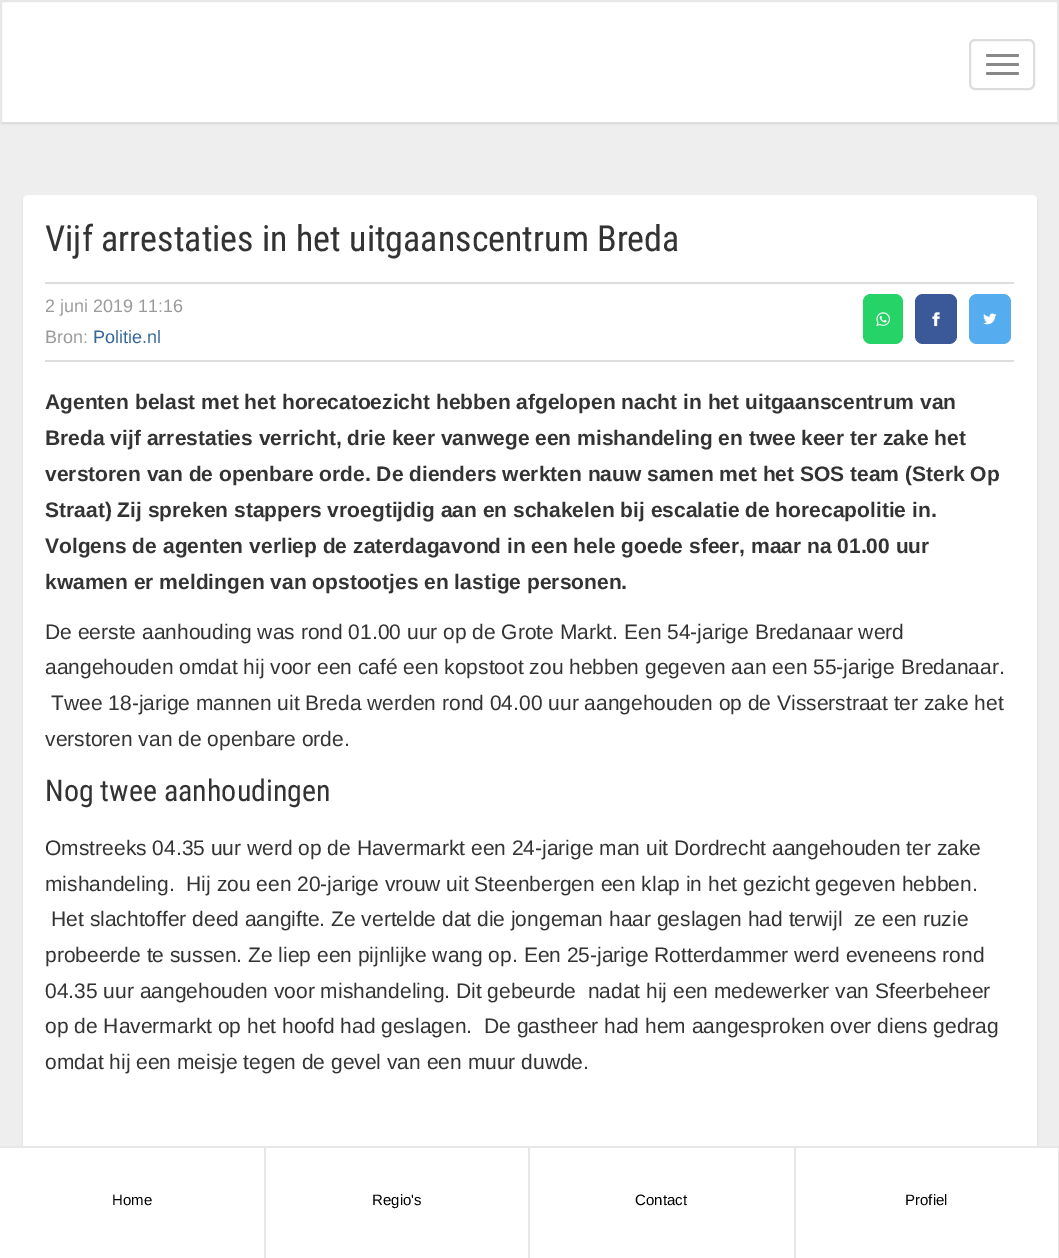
%!PS
<< /PageSize [1059 1258] /PageUsesTransparency true >> setpagedevice
/rgb { 3 { 255 div 3 1 roll } repeat setrgbcolor } def
/font { [ exch dup neg 0 0 3 -1 roll 0 0 ] selectfont } def
/text { moveto show } def
/alpha { dup .setfillconstantalpha .setstrokeconstantalpha } def
/roundrect { 5 dict begin { /r /h /w /y /x } { exch def } forall
  x r add y moveto x w add y 2 copy h add r arct x w add y h add x 1 index r arct
  x y h add x y r arct x y 2 copy exch w add exch r arct closepath end } def
/shadow { 12 dict begin { /a /b /q /h /w /y /x } { exch def } forall gsave /was 0 def
  9 -2 -9 { dup b mul 4 div /e exch def 1 sub .425 mul 2.718 exch exp 1 add a .99 .min exch div /now exch def
    1 1 now sub 1 was sub div sub alpha /was now def
    w h .min e 2 mul add 0 gt { x e sub y e sub w e 2 mul add h e 2 mul add
      q e add b .6 mul add w h .min 2 div e add .min 0 .max roundrect fill } if } for grestore end } def
/picture { 5 dict begin { /h /w /y /x /name } { exch def } forall
  gsave x y translate w h scale
  w h 8 [w 0 0 h 0 0] name (r) file false 3 colorimage grestore end } def
0 .pushpdf14devicefilter
0 1258 translate 1 -1 scale
4 setmiterlimit
238 238 238 rgb
0 0 1059 1258 rectfill
255 255 255 rgb
2 2 1055 120 rectfill
231 231 231 rgb
2 setlinewidth
1 1 1057 123 rectstroke
221 221 221 rgb
2 122 1056 2 rectfill
970 40 64 49 5 roundrect stroke
136 136 136 rgb
986 54 33 3 1.5 roundrect fill
986 63 33 3 1.5 roundrect fill
986 72 33 3 1.5 roundrect fill
180 180 180 rgb
23 197 1014 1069 5 1 0.5 shadow
255 255 255 rgb
23 195 1014 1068 5 roundrect fill
221 221 221 rgb
45 282 969 2 rectfill
45 360 969 2 rectfill
37 211 102 rgb
863 294 40 50 8 roundrect fill
(img_01.rgb) 876 312 14 14 picture
59 89 152 rgb
915 294 42 50 8 roundrect fill
(img_02.rgb) 932 312 8 15 picture
85 172 238 rgb
969 294 42 50 8 roundrect fill
(img_03.rgb) 983 313 14 12 picture
255 255 255 rgb
0 1148 1058 110 rectfill
231 231 231 rgb
0 1146 1059 2 rectfill
264 1148 2 110 rectfill
528 1148 2 110 rectfill
794 1148 2 110 rectfill
1058 1148 1 110 rectfill
/RobotoCondensed-Regular 36 font
51 51 51 rgb
(Vijf arrestaties in het uitgaanscentrum Breda) 45 251 text
/LiberationSans-Regular 18 font
154 154 154 rgb
(2 juni 2019 11:16) 45 312 text
(Bron:) 45 343 text
51 102 153 rgb
(Politie.nl) 93 343 text
/LiberationSans-Bold 21 font
51 51 51 rgb
(Agenten belast met het horecatoezicht hebben afgelopen nacht in het uitgaanscentrum van) 45 409 text
(Breda vijf arrestaties verricht, drie keer vanwege een mishandeling en twee keer ter zake het) 45 445 text
(verstoren van de openbare orde. De dienders werkten nauw samen met het SOS team \(Sterk Op) 45 481 text
(Straat\) Zij spreken stappers vroegtijdig aan en schakelen bij escalatie de horecapolitie in.) 45 517 text
(Volgens de agenten verliep de zaterdagavond in een hele goede sfeer, maar na 01.00 uur) 45 553 text
(kwamen er meldingen van opstootjes en lastige personen.) 45 589 text
/LiberationSans-Regular 21 font
(De eerste aanhouding was rond 01.00 uur op de Grote Markt. Een 54-jarige Bredanaar werd) 45 639 text
(aangehouden omdat hij voor een café een kopstoot zou hebben gegeven aan een 55-jarige Bredanaar.) 45 674 text
(Twee 18-jarige mannen uit Breda werden rond 04.00 uur aangehouden op de Visserstraat ter zake het) 51 710 text
(verstoren van de openbare orde.) 45 746 text
/RobotoCondensed-Regular 30 font
(Nog twee aanhoudingen) 45 801 text
/LiberationSans-Regular 21 font
(Omstreeks 04.35 uur werd op de Havermarkt een 24-jarige man uit Dordrecht aangehouden ter zake) 45 855 text
(mishandeling.  Hij zou een 20-jarige vrouw uit Steenbergen een klap in het gezicht gegeven hebben.) 45 891 text
(Het slachtoffer deed aangifte. Ze vertelde dat die jongeman haar geslagen had terwijl  ze een ruzie) 51 926 text
(probeerde te sussen. Ze liep een pijnlijke wang op. Een 25-jarige Rotterdammer werd eveneens rond) 45 962 text
(04.35 uur aangehouden voor mishandeling. Dit gebeurde  nadat hij een medewerker van Sfeerbeheer) 45 998 text
(op de Havermarkt op het hoofd had geslagen.  De gastheer had hem aangesproken over diens gedrag) 45 1033 text
(omdat hij een meisje tegen de gevel van een muur duwde.) 45 1069 text
/LiberationSans-Regular 15 font
0 0 0 rgb
(Home) 112 1205 text
(Regio's) 372 1205 text
(Contact) 635 1205 text
(Profiel) 905 1205 text
.poppdf14devicefilter showpage
